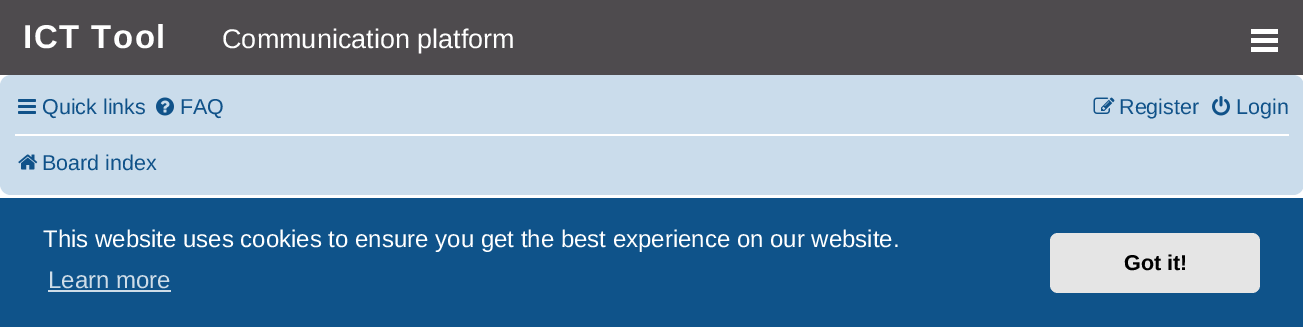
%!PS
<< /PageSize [1303 327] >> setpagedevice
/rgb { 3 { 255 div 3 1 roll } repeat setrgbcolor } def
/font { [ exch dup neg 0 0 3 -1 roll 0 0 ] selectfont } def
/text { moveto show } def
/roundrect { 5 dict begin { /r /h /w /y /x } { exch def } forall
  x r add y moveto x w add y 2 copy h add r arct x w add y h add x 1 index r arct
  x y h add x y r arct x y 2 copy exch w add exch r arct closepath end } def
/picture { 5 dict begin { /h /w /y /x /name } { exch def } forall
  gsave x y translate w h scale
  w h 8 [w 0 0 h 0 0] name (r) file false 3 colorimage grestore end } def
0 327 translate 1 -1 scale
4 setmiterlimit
255 255 255 rgb
0 0 1303 327 rectfill
78 75 78 rgb
0 0 1303 75 rectfill
255 255 255 rgb
1251 38 27 5 rectfill
1251 29 27 5 rectfill
1251 47 27 5 rectfill
202 220 235 rgb
0 75 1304 120 11 roundrect fill
(img_01.rgb) 18 99 18 15 picture
(img_02.rgb) 156 97 18 19 picture
(img_03.rgb) 1093 97 22 17 picture
(img_04.rgb) 1212 96 18 20 picture
255 255 255 rgb
15 134 1274 2 rectfill
(img_05.rgb) 18 154 20 16 picture
15 83 138 rgb
0 198 1303 129 rectfill
207 221 232 rgb
48 290 123 2 rectfill
229 229 229 rgb
1050 233 210 60 8 roundrect fill
/LiberationSans-Bold 33 font
255 255 255 rgb
23 48 moveto 1.5 0 (ICT Tool) ashow
/LiberationSans-Regular 27 font
(Communication platform) 222 48 text
/LiberationSans-Regular 21.5 font
16 82 137 rgb
(Quick links) 42 114 text
(FAQ) 180 114 text
(Register) 1119 114 text
(Login) 1236 114 text
(Board index) 42 170 text
/LiberationSans-Regular 24 font
255 255 255 rgb
(This website uses cookies to ensure you get the best experience on our website.) 43 247 text
207 221 232 rgb
(Learn more) 48 288 text
/LiberationSans-Bold 21.5 font
0 0 0 rgb
(Got it!) 1124 270 text
showpage
